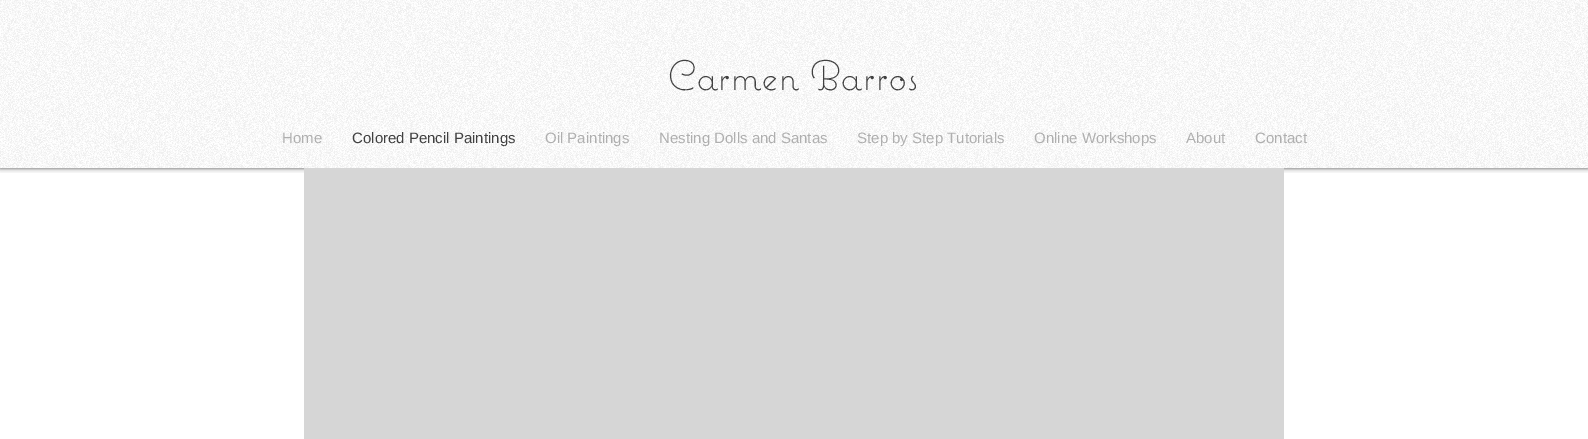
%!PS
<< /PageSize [1588 439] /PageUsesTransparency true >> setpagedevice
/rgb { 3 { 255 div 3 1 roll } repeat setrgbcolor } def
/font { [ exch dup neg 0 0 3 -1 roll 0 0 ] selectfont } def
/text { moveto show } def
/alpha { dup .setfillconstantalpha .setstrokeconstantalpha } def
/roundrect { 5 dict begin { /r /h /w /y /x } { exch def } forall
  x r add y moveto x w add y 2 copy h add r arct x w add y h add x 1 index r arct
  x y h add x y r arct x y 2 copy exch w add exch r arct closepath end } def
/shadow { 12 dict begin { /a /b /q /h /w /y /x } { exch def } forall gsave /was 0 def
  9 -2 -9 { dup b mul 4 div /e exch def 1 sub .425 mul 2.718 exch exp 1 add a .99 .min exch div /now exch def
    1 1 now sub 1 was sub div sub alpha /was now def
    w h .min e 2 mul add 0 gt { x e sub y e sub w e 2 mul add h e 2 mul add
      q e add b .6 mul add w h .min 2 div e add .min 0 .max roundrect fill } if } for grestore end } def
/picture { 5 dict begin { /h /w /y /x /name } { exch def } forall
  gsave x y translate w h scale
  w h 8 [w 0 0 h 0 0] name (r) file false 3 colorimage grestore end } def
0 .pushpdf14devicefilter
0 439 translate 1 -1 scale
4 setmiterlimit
255 255 255 rgb
0 0 1588 439 rectfill
gsave
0 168 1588 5 rectclip
0 0 0 rgb
0 0 1588 168 0 2.5 0.7 shadow
grestore
(img_01.rgb) 0 0 1588 168 picture
214 214 214 rgb
304 168 980 271 rectfill
/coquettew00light-Light 42 font
65 65 65 rgb
(Carmen Barros) 667 90 text
/LiberationSans-Regular 15 font
175 175 175 rgb
(Home) 282 143 text
65 65 65 rgb
(Colored Pencil Paintings) 352 143 text
175 175 175 rgb
(Oil Paintings) 545 143 text
(Nesting Dolls and Santas) 659 143 text
(Step by Step Tutorials) 857 143 text
(Online Workshops) 1034 143 text
(About) 1186 143 text
(Contact) 1255 143 text
.poppdf14devicefilter showpage
